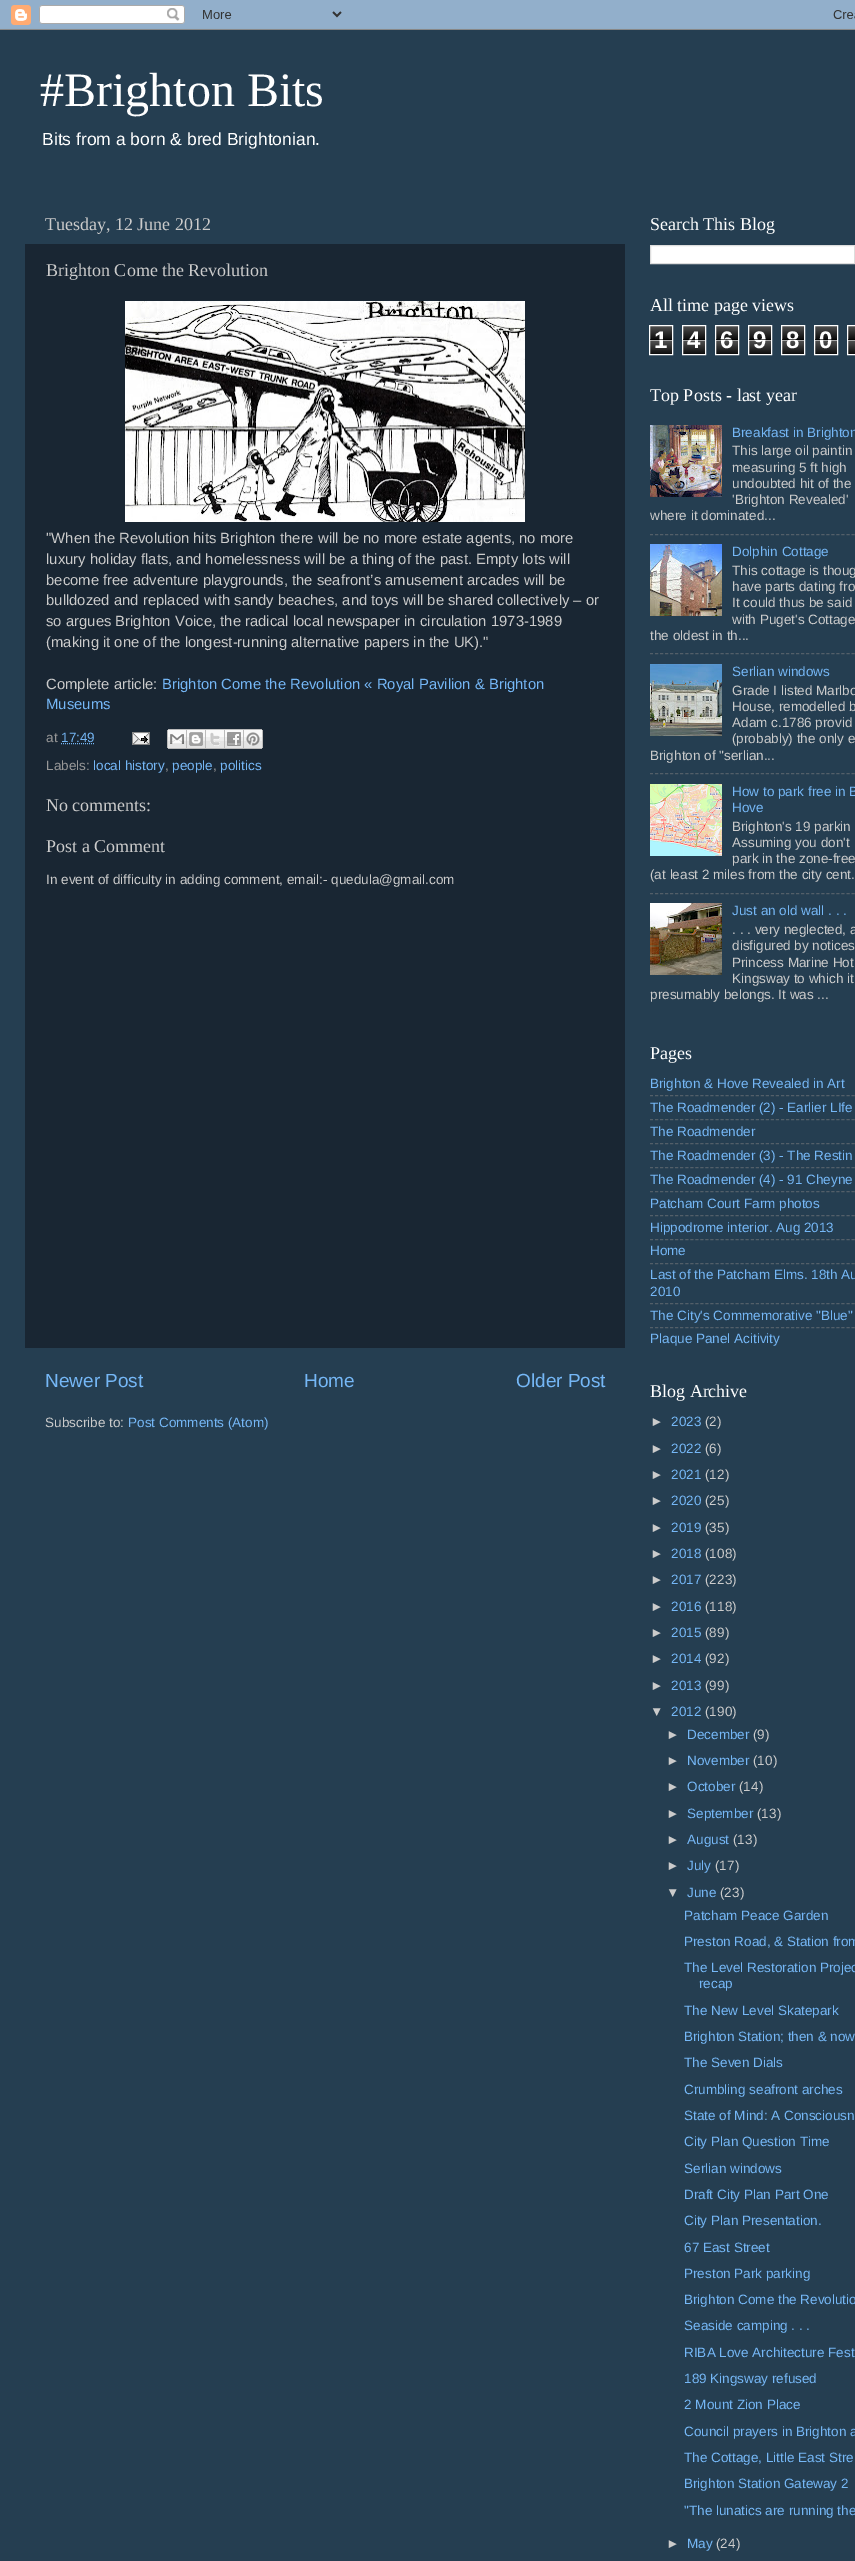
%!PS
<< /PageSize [855 2561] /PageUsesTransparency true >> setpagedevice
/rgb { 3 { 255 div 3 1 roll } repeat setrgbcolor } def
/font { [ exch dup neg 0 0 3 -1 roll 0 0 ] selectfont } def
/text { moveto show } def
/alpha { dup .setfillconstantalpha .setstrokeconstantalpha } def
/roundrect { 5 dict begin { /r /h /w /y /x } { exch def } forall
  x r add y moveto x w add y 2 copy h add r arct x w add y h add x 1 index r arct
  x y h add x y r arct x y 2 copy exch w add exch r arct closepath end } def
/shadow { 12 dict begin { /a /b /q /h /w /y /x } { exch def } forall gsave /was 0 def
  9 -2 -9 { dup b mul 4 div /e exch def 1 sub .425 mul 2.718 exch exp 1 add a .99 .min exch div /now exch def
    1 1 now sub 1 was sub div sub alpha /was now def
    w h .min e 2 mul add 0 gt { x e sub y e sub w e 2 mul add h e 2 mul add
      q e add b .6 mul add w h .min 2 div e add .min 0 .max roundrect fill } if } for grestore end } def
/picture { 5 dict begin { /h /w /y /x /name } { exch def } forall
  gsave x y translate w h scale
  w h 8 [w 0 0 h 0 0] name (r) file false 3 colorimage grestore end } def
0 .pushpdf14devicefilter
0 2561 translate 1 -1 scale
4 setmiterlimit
74 122 168 rgb
0 0 855 2561 rectfill
0 0 0 rgb
0 30 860 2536 0 1.5 0.15 shadow
(img_01.rgb) 0 0 855 30 picture
37 62 81 rgb
0 30 855 2531 rectfill
25 38 51 rgb
25 244 600 1104 rectfill
(img_02.rgb) 125 301 400 221 picture
117 183 246 rgb
[1 1] 0 setdash
61 743.5 moveto 34 0 rlineto stroke
(img_03.rgb) 132 732 18 13 picture
(img_04.rgb) 167 729 20 20 picture
(img_05.rgb) 187 729 19 20 picture
(img_06.rgb) 206 729 19 20 picture
(img_07.rgb) 225 729 19 20 picture
(img_08.rgb) 244 729 19 20 picture
255 255 255 rgb
650.5 245.5 moveto 204 0 rlineto 0 18 rlineto -204 0 rlineto closepath gsave fill grestore
221 221 221 rgb
[] 0 setdash
stroke
(img_09.rgb) 650 326 22 28 picture
255 255 255 rgb
649.5 325.5 23 29 rectstroke
(img_09.rgb) 683 326 22 28 picture
682.5 325.5 23 29 rectstroke
(img_09.rgb) 716 326 22 28 picture
715.5 325.5 23 29 rectstroke
(img_09.rgb) 749 326 22 28 picture
748.5 325.5 23 29 rectstroke
(img_09.rgb) 782 326 22 28 picture
781.5 325.5 23 29 rectstroke
(img_09.rgb) 815 326 22 28 picture
814.5 325.5 23 29 rectstroke
(img_10.rgb) 848 326 7 28 picture
847.5 325.5 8 29 rectstroke
0.65 alpha
0 0 0 rgb
848 339 7 1 rectfill
255 255 255 rgb
848 340 7 1 rectfill
1 alpha
(img_11.rgb) 650 425 72 72 picture
83 95 105 rgb
[3 2.04] 0 setdash
650 534.5 moveto 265 0 rlineto stroke
(img_12.rgb) 650 544 72 72 picture
650 653.5 moveto 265 0 rlineto stroke
(img_13.rgb) 650 664 72 72 picture
650 773.5 moveto 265 0 rlineto stroke
(img_14.rgb) 650 784 72 72 picture
650 893.5 moveto 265 0 rlineto stroke
(img_15.rgb) 650 903 72 72 picture
650 1095.5 moveto 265 0 rlineto stroke
650 1119.5 moveto 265 0 rlineto stroke
650 1143.5 moveto 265 0 rlineto stroke
650 1167.5 moveto 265 0 rlineto stroke
650 1191.5 moveto 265 0 rlineto stroke
650 1215.5 moveto 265 0 rlineto stroke
650 1239.5 moveto 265 0 rlineto stroke
650 1263.5 moveto 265 0 rlineto stroke
650 1303.5 moveto 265 0 rlineto stroke
650 1327.5 moveto 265 0 rlineto stroke
/LiberationSerif-Regular 48 font
255 255 255 rgb
(#Brighton Bits) 40 106 text
/LiberationSans-Regular 17.5 font
(Bits from a born & bred Brightonian.) 42 145 text
/LiberationSerif-Regular 18 font
203 203 203 rgb
(Tuesday, 12 June 2012) 45 230 text
(Brighton Come the Revolution) 46 276 text
/LiberationSans-Regular 14.85 font
("When the Revolution hits Brighton there will be no more estate agents, no more) 46 543 text
(luxury holiday flats, and homelessness will be a thing of the past. Empty lots will) 46 564 text
(become free adventure playgrounds, the seafront’s amusement arcades will be) 46 585 text
(bulldozed and replaced with sandy beaches, and toys will be shared collectively – or) 46 605 text
(so argues Brighton Voice, the radical local newspaper in circulation 1973-1989) 46 626 text
(\(making it one of the longest-running alternative papers in the UK\).") 46 647 text
(Complete article:) 46 689 text
117 183 246 rgb
(Brighton Come the Revolution « Royal Pavilion & Brighton) 162 689 text
(Museums) 46 709 text
/LiberationSans-Regular 13.5 font
152 152 152 rgb
(at) 46 742 text
117 183 246 rgb
(17:49) 61 742 text
152 152 152 rgb
(Labels:) 46 770 text
117 183 246 rgb
(local history) 93 770 text
152 152 152 rgb
(,) 165 770 text
117 183 246 rgb
(people) 172 770 text
152 152 152 rgb
(,) 213 770 text
117 183 246 rgb
(politics) 220 770 text
/LiberationSerif-Regular 18 font
203 203 203 rgb
(No comments:) 46 811 text
(Post a Comment) 46 852 text
/LiberationSans-Regular 13.5 font
(In event of difficulty in adding comment, email:- quedula@gmail.com) 46 884 text
/LiberationSans-Regular 19 font
117 183 246 rgb
(Newer Post) 45 1387 text
(Home) 304 1387 text
(Older Post) 516 1387 text
/LiberationSans-Regular 13.5 font
203 203 203 rgb
(Subscribe to:) 45 1427 text
117 183 246 rgb
(Post Comments \(Atom\)) 128 1427 text
/LiberationSerif-Regular 18 font
255 255 255 rgb
(Search This Blog) 650 230 text
(All time page views) 650 311 text
/LiberationSans-Bold 24 font
(1) 654 348 text
0.65 alpha
0 0 0 rgb
650 339 22 1 rectfill
255 255 255 rgb
650 340 22 1 rectfill
1 alpha
(4) 687 348 text
0.65 alpha
0 0 0 rgb
683 339 22 1 rectfill
255 255 255 rgb
683 340 22 1 rectfill
1 alpha
(6) 720 348 text
0.65 alpha
0 0 0 rgb
716 339 22 1 rectfill
255 255 255 rgb
716 340 22 1 rectfill
1 alpha
(9) 753 348 text
0.65 alpha
0 0 0 rgb
749 339 22 1 rectfill
255 255 255 rgb
749 340 22 1 rectfill
1 alpha
(8) 786 348 text
0.65 alpha
0 0 0 rgb
782 339 22 1 rectfill
255 255 255 rgb
782 340 22 1 rectfill
1 alpha
(0) 819 348 text
0.65 alpha
0 0 0 rgb
815 339 22 1 rectfill
255 255 255 rgb
815 340 22 1 rectfill
/LiberationSerif-Regular 18 font
1 alpha
(Top Posts - last year) 650 401 text
/LiberationSans-Regular 13.5 font
117 183 246 rgb
(Breakfast in Brighton) 732 437 text
203 203 203 rgb
(This large oil paintin) 732 455 text
(measuring 5 ft high) 732 472 text
(undoubted hit of the) 732 488 text
('Brighton Revealed') 732 504 text
(where it dominated...) 650 520 text
117 183 246 rgb
(Dolphin Cottage) 732 556 text
203 203 203 rgb
(This cottage is thoug) 732 575 text
(have parts dating fro) 732 591 text
(It could thus be said) 732 607 text
(with Puget's Cottage) 732 624 text
(the oldest in th...) 650 640 text
117 183 246 rgb
(Serlian windows) 732 676 text
203 203 203 rgb
(Grade I listed Marlbo) 732 695 text
(House, remodelled b) 732 711 text
(Adam c.1786 provid) 732 727 text
(\(probably\) the only e) 732 743 text
(Brighton of "serlian...) 650 760 text
117 183 246 rgb
(How to park free in B) 732 796 text
(Hove) 732 812 text
203 203 203 rgb
(Brighton's 19 parkin) 732 831 text
(Assuming you don't) 732 847 text
(park in the zone-free) 732 863 text
(\(at least 2 miles from the city cent.) 650 879 text
117 183 246 rgb
(Just an old wall . . .) 732 915 text
203 203 203 rgb
(. . . very neglected, a) 732 934 text
(disfigured by notices) 732 950 text
(Princess Marine Hot) 732 967 text
(Kingsway to which it) 732 983 text
(presumably belongs. It was ...) 650 999 text
/LiberationSerif-Regular 18 font
255 255 255 rgb
(Pages) 650 1059 text
/LiberationSans-Regular 13.5 font
117 183 246 rgb
(Brighton & Hove Revealed in Art) 650 1088 text
(The Roadmender \(2\) - Earlier LIfe) 650 1112 text
(The Roadmender) 650 1136 text
(The Roadmender \(3\) - The Restin) 650 1160 text
(The Roadmender \(4\) - 91 Cheyne) 650 1184 text
(Patcham Court Farm photos) 650 1208 text
(Hippodrome interior. Aug 2013) 650 1232 text
(Home) 650 1255 text
(Last of the Patcham Elms. 18th Au) 650 1279 text
(2010) 650 1296 text
(The City's Commemorative "Blue") 650 1320 text
(Plaque Panel Acitivity) 650 1343 text
/LiberationSerif-Regular 18 font
255 255 255 rgb
(Blog Archive) 650 1397 text
/LiberationSans-Regular 13.5 font
203 203 203 rgb
(►) 650 1426 text
117 183 246 rgb
(2023) 671 1426 text
203 203 203 rgb
(\(2\)) 705 1426 text
(►) 650 1453 text
117 183 246 rgb
(2022) 671 1453 text
203 203 203 rgb
(\(6\)) 705 1453 text
(►) 650 1479 text
117 183 246 rgb
(2021) 671 1479 text
203 203 203 rgb
(\(12\)) 705 1479 text
(►) 650 1505 text
117 183 246 rgb
(2020) 671 1505 text
203 203 203 rgb
(\(25\)) 705 1505 text
(►) 650 1532 text
117 183 246 rgb
(2019) 671 1532 text
203 203 203 rgb
(\(35\)) 705 1532 text
(►) 650 1558 text
117 183 246 rgb
(2018) 671 1558 text
203 203 203 rgb
(\(108\)) 705 1558 text
(►) 650 1584 text
117 183 246 rgb
(2017) 671 1584 text
203 203 203 rgb
(\(223\)) 705 1584 text
(►) 650 1611 text
117 183 246 rgb
(2016) 671 1611 text
203 203 203 rgb
(\(118\)) 705 1611 text
(►) 650 1637 text
117 183 246 rgb
(2015) 671 1637 text
203 203 203 rgb
(\(89\)) 705 1637 text
(►) 650 1663 text
117 183 246 rgb
(2014) 671 1663 text
203 203 203 rgb
(\(92\)) 705 1663 text
(►) 650 1690 text
117 183 246 rgb
(2013) 671 1690 text
203 203 203 rgb
(\(99\)) 705 1690 text
(▼) 650 1716 text
117 183 246 rgb
(2012) 671 1716 text
203 203 203 rgb
(\(190\)) 705 1716 text
(►) 666 1739 text
117 183 246 rgb
(December) 687 1739 text
203 203 203 rgb
(\(9\)) 753 1739 text
(►) 666 1765 text
117 183 246 rgb
(November) 687 1765 text
203 203 203 rgb
(\(10\)) 753 1765 text
(►) 666 1791 text
117 183 246 rgb
(October) 687 1791 text
203 203 203 rgb
(\(14\)) 739 1791 text
(►) 666 1818 text
117 183 246 rgb
(September) 687 1818 text
203 203 203 rgb
(\(13\)) 757 1818 text
(►) 666 1844 text
117 183 246 rgb
(August) 687 1844 text
203 203 203 rgb
(\(13\)) 733 1844 text
(►) 666 1870 text
117 183 246 rgb
(July) 687 1870 text
203 203 203 rgb
(\(17\)) 715 1870 text
(▼) 666 1897 text
117 183 246 rgb
(June) 687 1897 text
203 203 203 rgb
(\(23\)) 720 1897 text
117 183 246 rgb
(Patcham Peace Garden) 684 1920 text
(Preston Road, & Station from) 684 1946 text
(The Level Restoration Projec) 684 1972 text
(recap) 699 1988 text
(The New Level Skatepark) 684 2015 text
(Brighton Station; then & now) 684 2041 text
(The Seven Dials) 684 2067 text
(Crumbling seafront arches) 684 2094 text
(State of Mind: A Consciousn) 684 2120 text
(City Plan Question Time) 684 2146 text
(Serlian windows) 684 2173 text
(Draft City Plan Part One) 684 2199 text
(City Plan Presentation.) 684 2225 text
(67 East Street) 684 2252 text
(Preston Park parking) 684 2278 text
(Brighton Come the Revolutio) 684 2304 text
(Seaside camping . . .) 684 2330 text
(RIBA Love Architecture Fest) 684 2357 text
(189 Kingsway refused) 684 2383 text
(2 Mount Zion Place) 684 2409 text
(Council prayers in Brighton a) 684 2436 text
(The Cottage, Little East Stre) 684 2462 text
(Brighton Station Gateway 2) 684 2488 text
("The lunatics are running the) 684 2515 text
203 203 203 rgb
(►) 666 2548 text
117 183 246 rgb
(May) 687 2548 text
203 203 203 rgb
(\(24\)) 716 2548 text
.poppdf14devicefilter showpage
